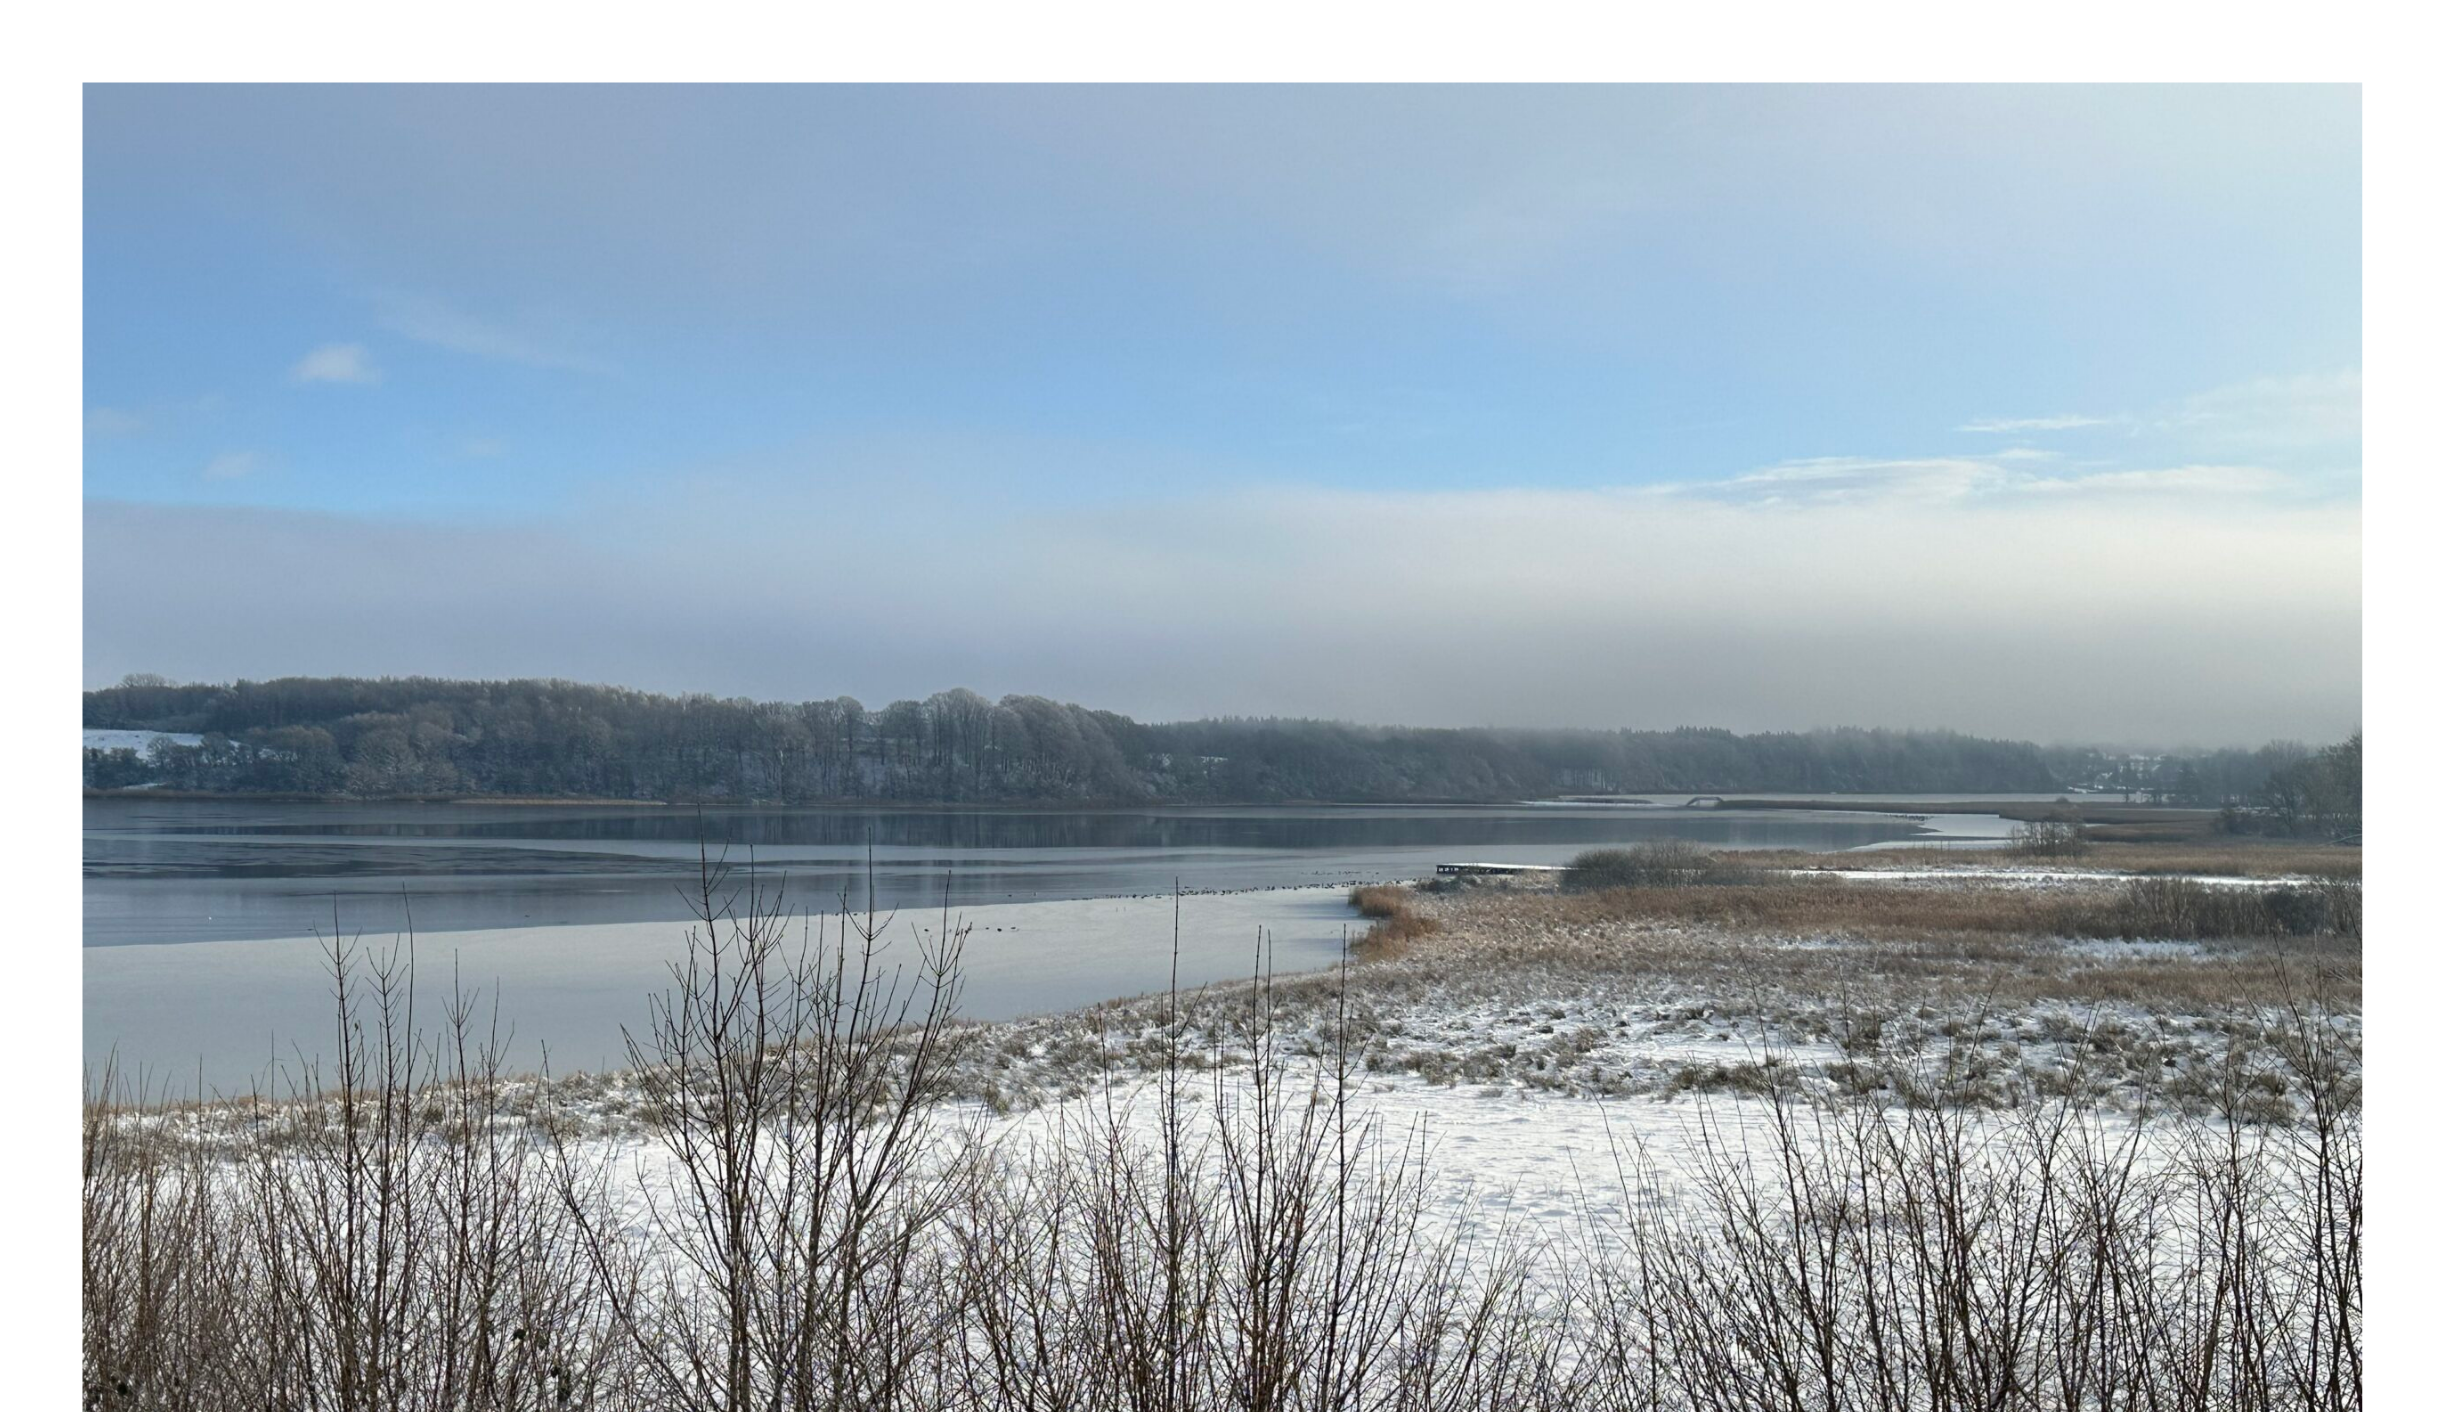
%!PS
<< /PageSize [2444 1412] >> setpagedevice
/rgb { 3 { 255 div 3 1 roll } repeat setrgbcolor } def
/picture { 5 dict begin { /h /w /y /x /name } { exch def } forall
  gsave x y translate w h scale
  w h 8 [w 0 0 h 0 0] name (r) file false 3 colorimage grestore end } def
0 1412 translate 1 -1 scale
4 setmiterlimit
255 255 255 rgb
0 0 2444 1412 rectfill
(img_01.rgb) 82 82 2281 1330 picture
showpage
